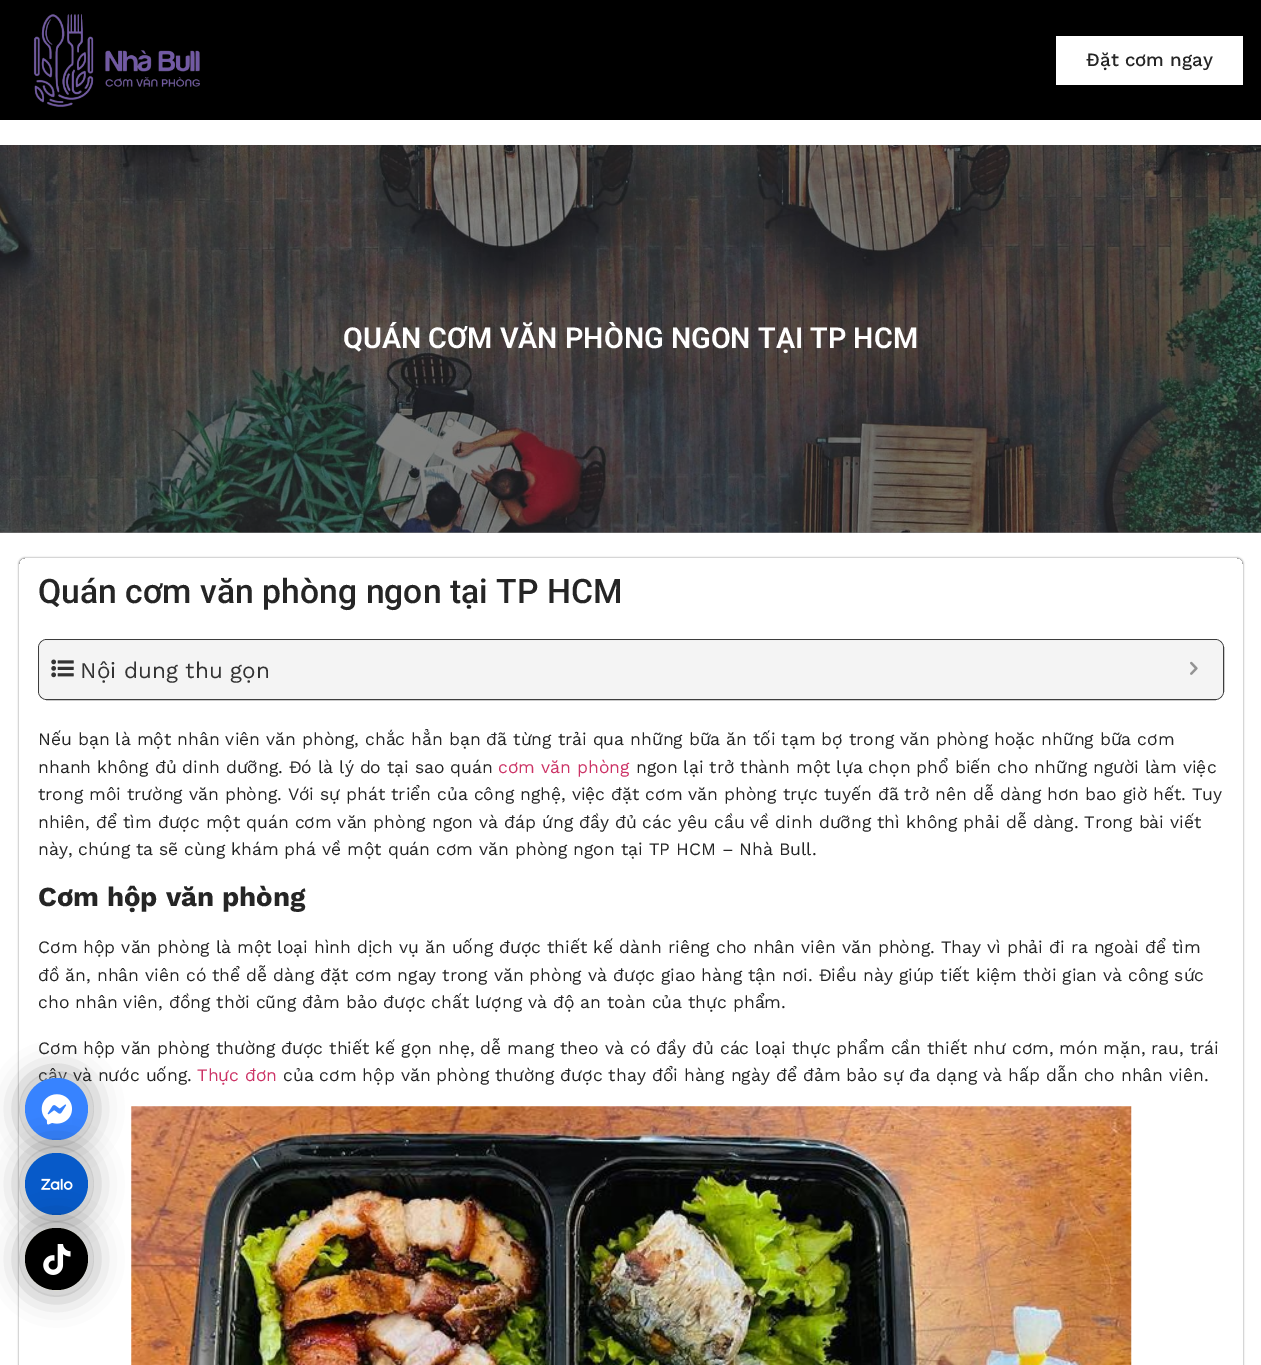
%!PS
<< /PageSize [1261 1365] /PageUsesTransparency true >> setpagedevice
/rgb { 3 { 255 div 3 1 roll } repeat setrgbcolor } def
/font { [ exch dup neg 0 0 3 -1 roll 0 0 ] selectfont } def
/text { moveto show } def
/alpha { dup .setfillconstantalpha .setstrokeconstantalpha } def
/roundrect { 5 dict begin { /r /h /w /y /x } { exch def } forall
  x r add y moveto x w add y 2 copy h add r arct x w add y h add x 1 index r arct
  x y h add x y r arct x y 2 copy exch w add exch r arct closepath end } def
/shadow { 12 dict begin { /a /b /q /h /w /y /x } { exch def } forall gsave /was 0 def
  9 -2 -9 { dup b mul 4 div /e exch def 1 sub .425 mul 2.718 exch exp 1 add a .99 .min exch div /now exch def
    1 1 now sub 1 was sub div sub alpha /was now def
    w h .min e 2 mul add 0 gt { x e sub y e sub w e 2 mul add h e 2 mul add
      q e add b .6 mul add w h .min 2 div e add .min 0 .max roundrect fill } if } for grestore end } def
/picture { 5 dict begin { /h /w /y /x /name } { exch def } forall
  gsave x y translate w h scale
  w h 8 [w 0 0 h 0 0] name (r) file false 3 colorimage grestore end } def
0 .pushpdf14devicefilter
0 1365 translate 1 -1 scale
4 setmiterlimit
255 255 255 rgb
0 0 1261 1365 rectfill
131 131 131 rgb
0 532 1261 1 rectfill
0 0 0 rgb
0 0 1261 120 rectfill
(img_01.rgb) 33 14 167 93 picture
255 255 255 rgb
1056 36 187 49 rectfill
(img_02.rgb) 0 145 1261 388 picture
gsave
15 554 moveto 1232 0 rlineto 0 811 rlineto -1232 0 rlineto closepath 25 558 moveto 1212 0 rlineto 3.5 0 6 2.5 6 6 rcurveto 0 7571 rlineto 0 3.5 -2.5 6 -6 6 rcurveto -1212 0 rlineto -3.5 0 -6 -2.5 -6 -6 rcurveto 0 -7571 rlineto 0 -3.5 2.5 -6 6 -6 rcurveto closepath eoclip newpath
0 0 0 rgb
19 558 1224 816 6 1 0.5 shadow
grestore
61 61 61 rgb
38.5 639.5 1185 60 8.5 roundrect stroke
0.95 alpha
243 243 243 rgb
39 640 1184 59 8 roundrect fill
1 alpha
(img_03.rgb) 51 659 23 19 picture
(img_04.rgb) 1190 661 8 14 picture
(img_05.rgb) 131 1106 1001 259 picture
0 0 0 rgb
23 1075 67 68 33.5 15.5 0.4 shadow
/WorkSans-Medium 18.75 font
37 37 37 rgb
(Đặt cơm ngay) 1086 66 text
/Roboto-SemiBold 28.75 font
255 255 255 rgb
(QUÁN CƠM VĂN PHÒNG NGON TẠI TP HCM) 343 348 text
/Roboto-Medium 33.75 font
37 37 37 rgb
(Quán cơm văn phòng ngon tại TP HCM) 38 603 text
/WorkSans-Regular 22.5 font
51 51 51 rgb
(Nội dung thu gọn) 80 678 text
/WorkSans-Regular 17.5 font
37 37 37 rgb
(Nếu bạn là một nhân viên văn phòng, chắc hẳn bạn đã từng trải qua những bữa ăn tối tạm bợ trong văn phòng hoặc những bữa cơm) 38 745 text
(nhanh không đủ dinh dưỡng. Đó là lý do tại sao quán) 38 773 text
204 51 102 rgb
(cơm văn phòng) 498 773 text
37 37 37 rgb
(ngon lại trở thành một lựa chọn phổ biến cho những người làm việc) 636 773 text
(trong môi trường văn phòng. Với sự phát triển của công nghệ, việc đặt cơm văn phòng trực tuyến đã trở nên dễ dàng hơn bao giờ hết. Tuy) 38 800 text
(nhiên, để tìm được một quán cơm văn phòng ngon và đáp ứng đầy đủ các yêu cầu về dinh dưỡng thì không phải dễ dàng. Trong bài viết) 38 828 text
(này, chúng ta sẽ cùng khám phá về một quán cơm văn phòng ngon tại TP HCM – Nhà Bull.) 38 855 text
/WorkSans-Bold 27.5 font
(Cơm hộp văn phòng) 38 906 text
/WorkSans-Regular 17.5 font
(Cơm hộp văn phòng là một loại hình dịch vụ ăn uống được thiết kế dành riêng cho nhân viên văn phòng. Thay vì phải đi ra ngoài để tìm) 38 953 text
(đồ ăn, nhân viên có thể dễ dàng đặt cơm ngay trong văn phòng và được giao hàng tận nơi. Điều này giúp tiết kiệm thời gian và công sức) 38 981 text
(cho nhân viên, đồng thời cũng đảm bảo được chất lượng và độ an toàn của thực phẩm.) 38 1008 text
(Cơm hộp văn phòng thường được thiết kế gọn nhẹ, dễ mang theo và có đầy đủ các loại thực phẩm cần thiết như cơm, món mặn, rau, trái) 38 1054 text
(cây và nước uống.) 38 1081 text
204 51 102 rgb
(Thực đơn) 197 1081 text
37 37 37 rgb
(của cơm hộp văn phòng thường được thay đổi hàng ngày để đảm bảo sự đa dạng và hấp dẫn cho nhân viên.) 283 1081 text
0.2 alpha
255 255 255 rgb
5 setlinewidth
22.5 1075.5 68 67 33.5 roundrect stroke
0.4 alpha
255 255 155 rgb
19 setlinewidth
34.5 1087.5 44 43 21.5 roundrect stroke
1 alpha
55 131 255 rgb
25 1078 63 62 31 roundrect fill
0 0 0 rgb
23 1150 67 68 33.5 15.5 0.4 shadow
(img_06.rgb) 41 1094 31 31 picture
0.2 alpha
255 255 255 rgb
5 setlinewidth
22.5 1150.5 68 67 33.5 roundrect stroke
0.4 alpha
255 255 155 rgb
19 setlinewidth
34.5 1162.5 44 43 21.5 roundrect stroke
1 alpha
7 90 201 rgb
25 1153 63 62 31 roundrect fill
0 0 0 rgb
23 1225 67 68 33.5 15.5 0.4 shadow
(img_07.rgb) 41 1178 32 12 picture
0.2 alpha
255 255 255 rgb
5 setlinewidth
22.5 1225.5 68 67 33.5 roundrect stroke
0.4 alpha
255 255 155 rgb
19 setlinewidth
34.5 1237.5 44 43 21.5 roundrect stroke
1 alpha
0 0 0 rgb
25 1228 63 62 31 roundrect fill
(img_08.rgb) 43 1244 28 31 picture
.poppdf14devicefilter showpage
